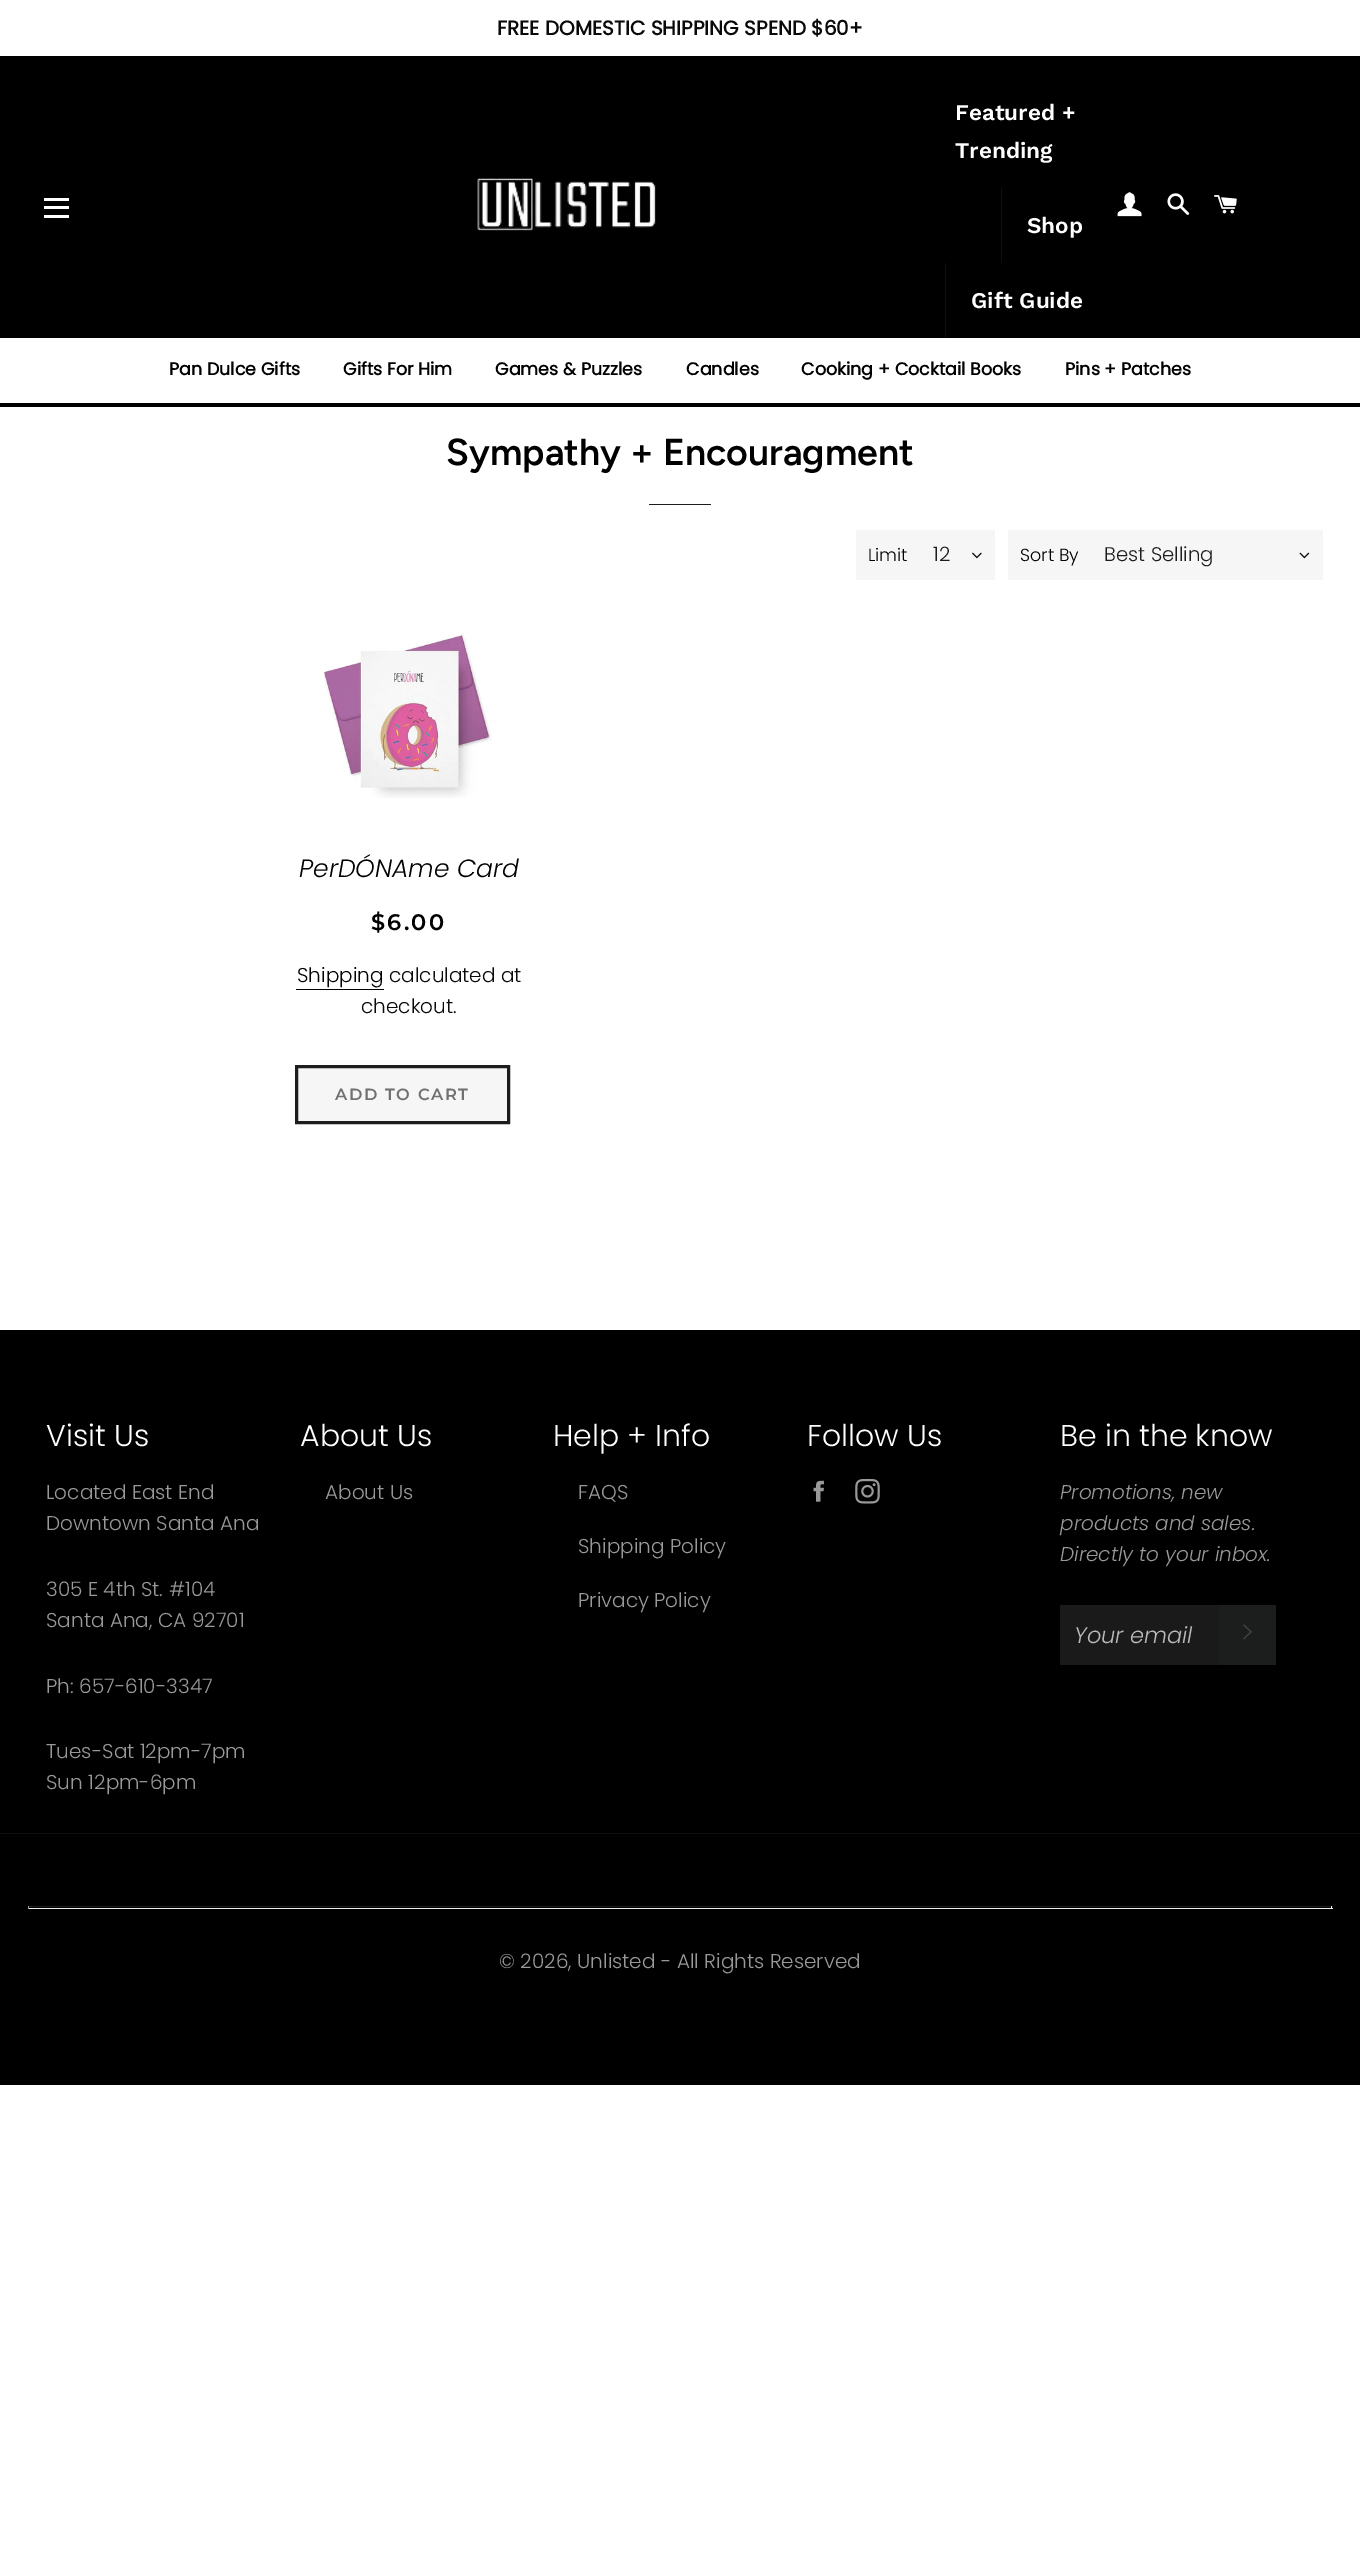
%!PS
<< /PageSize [1360 2576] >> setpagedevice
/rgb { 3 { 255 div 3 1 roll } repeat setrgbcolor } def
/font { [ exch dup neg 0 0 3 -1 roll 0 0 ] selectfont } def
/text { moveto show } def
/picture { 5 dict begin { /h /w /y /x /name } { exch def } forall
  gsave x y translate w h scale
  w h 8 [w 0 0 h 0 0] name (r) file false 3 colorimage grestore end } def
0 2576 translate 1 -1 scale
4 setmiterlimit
255 255 255 rgb
0 0 1360 2576 rectfill
0 0 0 rgb
0 56 1360 282 rectfill
255 255 255 rgb
44 198 25 3 rectfill
44 206 25 3 rectfill
44 215 25 3 rectfill
(img_01.rgb) 477 178 179 53 picture
15 15 15 rgb
1001 188 1 75 rectfill
945 263 1 75 rectfill
(img_02.rgb) 1117 192 25 25 picture
(img_03.rgb) 1167 193 23 22 picture
(img_04.rgb) 1214 195 23 19 picture
0 0 0 rgb
0 403 1360 4 rectfill
28 29 29 rgb
649 504 62 1 rectfill
246 246 246 rgb
856 530 139 50 rectfill
(img_05.rgb) 972 552 10 7 picture
1008 530 315 50 rectfill
(img_06.rgb) 1299 552 11 7 picture
(img_07.rgb) 323 634 169 164 picture
0 0 0 rgb
296 989 88 1 rectfill
246 246 246 rgb
296.5 1066.5 moveto 212 0 rlineto 0 56 rlineto -212 0 rlineto closepath gsave fill grestore
28 29 29 rgb
3 setlinewidth
stroke
0 0 0 rgb
0 1330 1360 755 rectfill
(img_08.rgb) 813 1480 11 22 picture
(img_09.rgb) 855 1478 25 26 picture
26 26 26 rgb
1060 1605 159 60 rectfill
28 29 29 rgb
1219 1605 57 60 rectfill
(img_10.rgb) 1243 1624 9 16 picture
13 13 13 rgb
0 1833 1360 1 rectfill
28 29 29 rgb
28 1906 1305 1 rectfill
238 238 238 rgb
1331 1906 1 3 rectfill
28 1908 1305 1 rectfill
159 159 159 rgb
28 1906 1 3 rectfill
/Poppins-Bold 20 font
10 10 10 rgb
(FREE DOMESTIC SHIPPING SPEND $60+) 497 35 text
/WorkSans-SemiBold 22.5 font
255 255 255 rgb
(Featured +) 955 120 text
(Trending) 955 158 text
(Shop) 1027 233 text
(Gift Guide) 971 308 text
/Poppins-Bold 17.5 font
0 0 0 rgb
(Pan Dulce Gifts) 169 375 text
(Gifts For Him) 343 375 text
(Games & Puzzles) 495 375 text
(Candles) 686 375 text
(Cooking + Cocktail Books) 801 375 text
(Pins + Patches) 1065 375 text
/Figtree-SemiBold 37.5 font
(Sympathy + Encouragment) 446 465 text
/Poppins-Light 17.5 font
(Limit) 868 561 text
/Poppins-Light 19.75 font
28 29 29 rgb
(12) 933 561 text
/Poppins-Light 17.5 font
0 0 0 rgb
(Sort By) 1020 561 text
/Poppins-Light 19.75 font
28 29 29 rgb
(Best Selling) 1104 561 text
/Poppins-LightItalic 25 font
0 0 0 rgb
(PerDÓNAme Card) 299 877 text
/Montserrat-SemiBold 22.5 font
371 930 moveto 2.25 0 ($6.00) ashow
/Poppins-Light 20 font
(Shipping) 297 982 text
10 10 10 rgb
(calculated at) 389 982 text
(checkout.) 361 1013 text
/Montserrat-SemiBold 16.25 font
113 113 113 rgb
335 1100 moveto 1.6 0 (ADD TO CART) ashow
/Poppins-Light 30 font
255 255 255 rgb
(Visit Us) 46 1446 text
/Poppins-Light 20 font
153 153 153 rgb
(Located East End) 46 1499 text
(Downtown Santa Ana) 46 1530 text
(305 E 4th St. #104) 46 1596 text
(Santa Ana, CA 92701) 46 1627 text
(Ph: 657-610-3347) 46 1693 text
(Tues-Sat 12pm-7pm) 46 1758 text
(Sun 12pm-6pm) 46 1789 text
/Poppins-Light 30 font
255 255 255 rgb
(About Us) 300 1446 text
/Poppins-Light 20 font
153 153 153 rgb
(About Us) 325 1499 text
/Poppins-Light 30 font
255 255 255 rgb
(Help + Info) 553 1446 text
/Poppins-Light 20 font
153 153 153 rgb
(FAQS) 578 1499 text
(Shipping Policy) 578 1553 text
(Privacy Policy) 578 1607 text
/Poppins-Light 30 font
255 255 255 rgb
(Follow Us) 807 1446 text
(Be in the know) 1060 1446 text
/Poppins-LightItalic 20 font
153 153 153 rgb
(Promotions, new) 1060 1499 text
(products and sales.) 1060 1530 text
(Directly to your inbox.) 1060 1561 text
/Poppins-LightItalic 22.5 font
186 186 186 rgb
(Your email) 1074 1643 text
/Poppins-Light 20 font
153 153 153 rgb
(© 2026, Unlisted - All Rights Reserved) 499 1968 text
showpage
